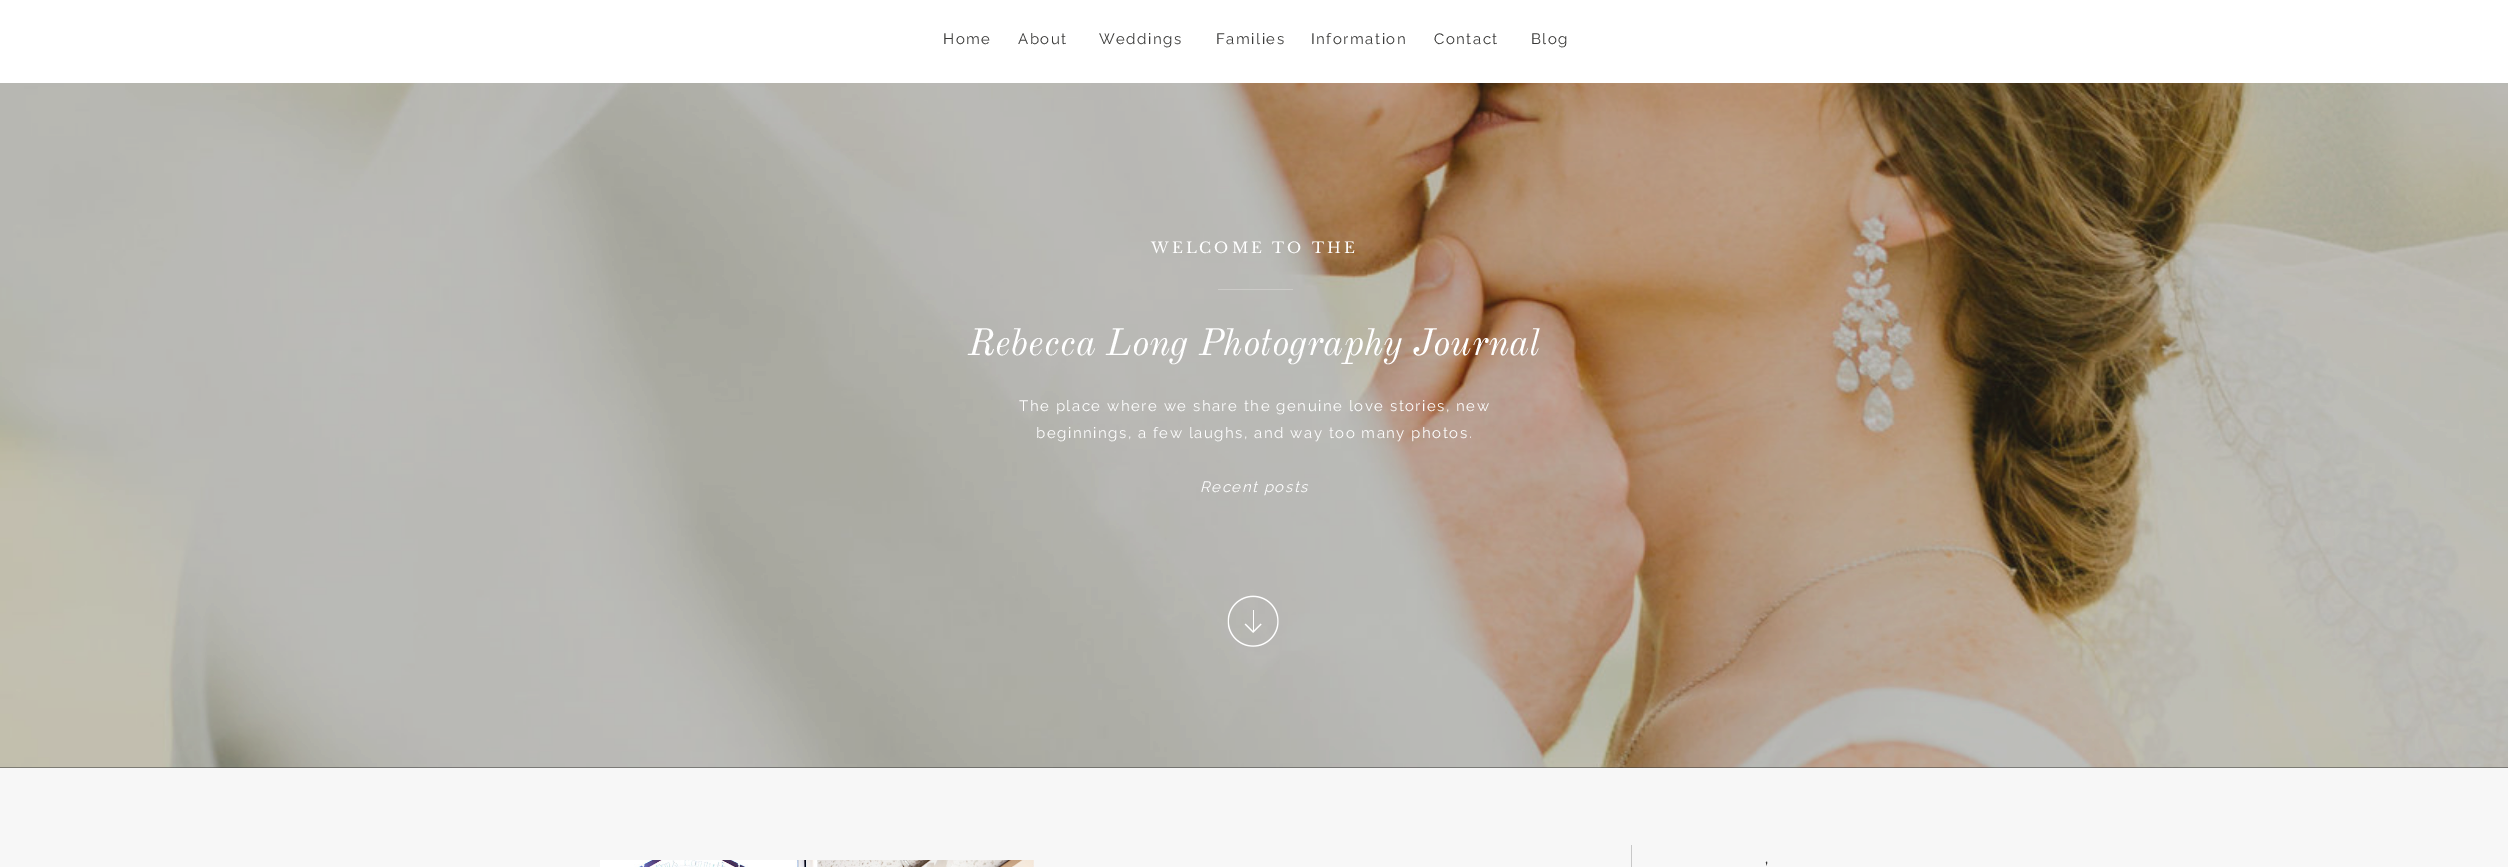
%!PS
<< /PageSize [2508 867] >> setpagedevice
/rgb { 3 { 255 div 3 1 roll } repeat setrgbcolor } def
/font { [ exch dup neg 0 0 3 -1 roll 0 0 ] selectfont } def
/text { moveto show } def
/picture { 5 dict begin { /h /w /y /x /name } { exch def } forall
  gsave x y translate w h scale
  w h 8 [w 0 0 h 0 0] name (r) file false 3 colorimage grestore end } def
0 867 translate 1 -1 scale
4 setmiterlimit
58 58 57 rgb
0 0 2508 867 rectfill
255 255 255 rgb
0 0 2508 83 rectfill
(img_01.rgb) 0 83 2508 685 picture
204 203 200 rgb
1218 289 75 1 rectfill
(img_02.rgb) 1227 595 52 52 picture
247 247 247 rgb
0 768 2508 99 rectfill
(img_03.rgb) 600 860 434 7 picture
200 200 200 rgb
1631 845 1 22 rectfill
/Raleway-Thin 15 font
58 58 57 rgb
943 44 moveto 1.5 0 (Home) ashow
1018 44 moveto 1.5 0 (About) ashow
1099 44 moveto 1.5 0 (Weddings) ashow
1216 44 moveto 1.5 0 (Families) ashow
1311 44 moveto 1.5 0 (Information) ashow
1434 44 moveto 1.5 0 (Contact) ashow
1531 44 moveto 1.5 0 (Blog) ashow
/LibreBaskerville-Regular 15 font
255 255 255 rgb
1151 253 moveto 3 0 (WELCOME TO THE) ashow
/OldStandardTT-Italic 37.5 font
(Rebecca Long Photography Journal) 968 355 text
/Raleway-Thin 15 font
1019 411 moveto 1.5 0 (The place where we share the genuine love stories, new) ashow
1036 438 moveto 1.5 0 (beginnings, a few laughs, and way too many photos.) ashow
/Raleway-ThinItalic 15 font
1200 492 moveto 1.5 0 (Recent posts) ashow
/LibreBaskerville-Regular 15 font
58 58 57 rgb
1765 874 moveto 3 0 (') ashow
showpage
